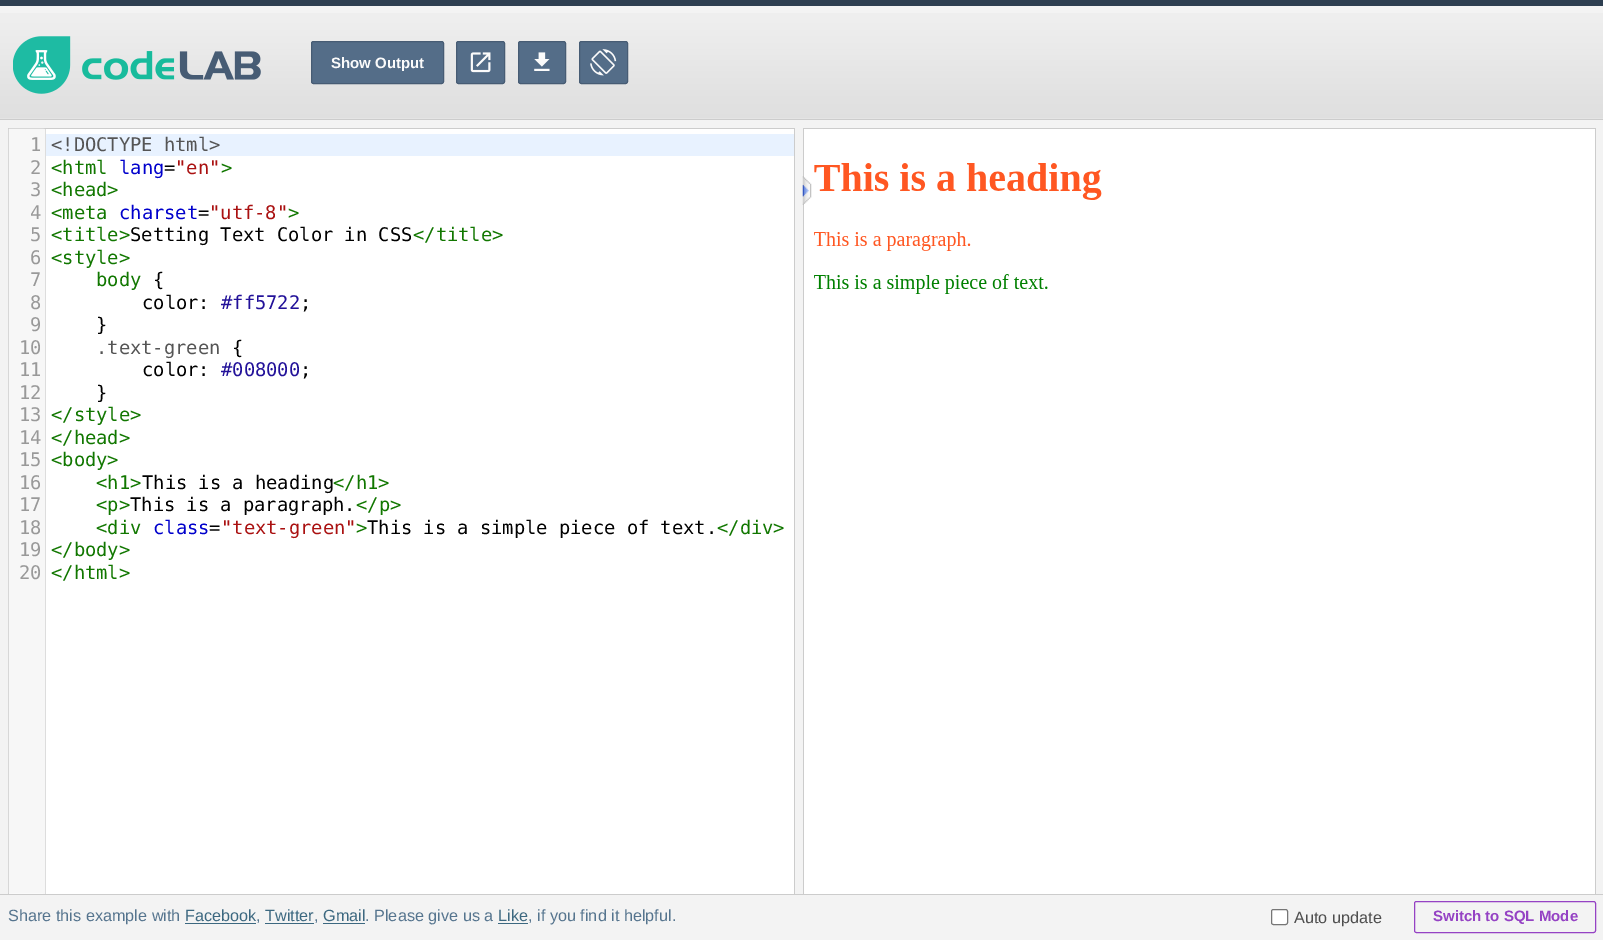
%!PS
<< /PageSize [1603 940] >> setpagedevice
/rgb { 3 { 255 div 3 1 roll } repeat setrgbcolor } def
/font { [ exch dup neg 0 0 3 -1 roll 0 0 ] selectfont } def
/text { moveto show } def
/roundrect { 5 dict begin { /r /h /w /y /x } { exch def } forall
  x r add y moveto x w add y 2 copy h add r arct x w add y h add x 1 index r arct
  x y h add x y r arct x y 2 copy exch w add exch r arct closepath end } def
/picture { 5 dict begin { /h /w /y /x /name } { exch def } forall
  gsave x y translate w h scale
  w h 8 [w 0 0 h 0 0] name (r) file false 3 colorimage grestore end } def
0 940 translate 1 -1 scale
4 setmiterlimit
243 243 243 rgb
0 0 1603 940 rectfill
(img_01.rgb) 0 13 1603 106 picture
204 204 204 rgb
0 119 1603 1 rectfill
45 62 80 rgb
0 0 1603 6 rectfill
(img_02.rgb) 13 36 248 58 picture
84 109 136 rgb
311.5 41.5 132 42 2 roundrect gsave fill grestore
71 92 116 rgb
stroke
84 109 136 rgb
456.5 41.5 48 42 2 roundrect gsave fill grestore
71 92 116 rgb
stroke
(img_03.rgb) 470 52 21 21 picture
84 109 136 rgb
518.5 41.5 47 42 2 roundrect gsave fill grestore
71 92 116 rgb
stroke
(img_04.rgb) 534 52 16 19 picture
84 109 136 rgb
579.5 41.5 48 42 2 roundrect gsave fill grestore
71 92 116 rgb
stroke
(img_05.rgb) 590 49 27 27 picture
255 255 255 rgb
46 129 748 765 rectfill
204 204 204 rgb
8 128 787 1 rectfill
794 128 1 766 rectfill
8 128 1 766 rectfill
(img_06.rgb) 8 128 37 766 picture
247 247 247 rgb
43 129 2 765 rectfill
221 221 221 rgb
45 129 1 765 rectfill
232 242 255 rgb
46 134 748 22 rectfill
204 204 204 rgb
803 128 793 1 rectfill
1595 128 1 766 rectfill
803 128 1 766 rectfill
255 255 255 rgb
804 129 791 765 rectfill
(img_07.rgb) 814 163 288 131 picture
(img_08.rgb) 802 176 10 29 picture
204 204 204 rgb
0 894 1603 1 rectfill
60 104 128 rgb
185 923 71 1 rectfill
265 923 49 1 rectfill
323 923 42 1 rectfill
498 923 30 1 rectfill
255 255 255 rgb
1271.5 909.5 16 15 2 roundrect gsave fill grestore
118 118 118 rgb
stroke
149 66 196 rgb
1414.5 901.5 181 31 2 roundrect stroke
/LiberationSans-Bold 15 font
251 251 251 rgb
(Show Output) 331 68 text
/DejaVuSansMono-Regular 18.75 font
153 153 153 rgb
(1) 30 151 text
85 85 85 rgb
(<!DOCTYPE html>) 51 151 text
153 153 153 rgb
(2) 30 174 text
17 119 0 rgb
(<html) 51 174 text
0 0 204 rgb
(lang) 119 174 text
0 0 0 rgb
(=) 164 174 text
170 17 17 rgb
("en") 175 174 text
17 119 0 rgb
(>) 221 174 text
153 153 153 rgb
(3) 30 196 text
17 119 0 rgb
(<head>) 51 196 text
153 153 153 rgb
(4) 30 219 text
17 119 0 rgb
(<meta) 51 219 text
0 0 204 rgb
(charset) 119 219 text
0 0 0 rgb
(=) 198 219 text
170 17 17 rgb
("utf-8") 209 219 text
17 119 0 rgb
(>) 288 219 text
153 153 153 rgb
(5) 30 241 text
17 119 0 rgb
(<title>) 51 241 text
0 0 0 rgb
(Setting Text Color in CSS) 130 241 text
17 119 0 rgb
(</title>) 413 241 text
153 153 153 rgb
(6) 30 264 text
17 119 0 rgb
(<style>) 51 264 text
153 153 153 rgb
(7) 30 286 text
17 119 0 rgb
(body) 96 286 text
0 0 0 rgb
({) 153 286 text
153 153 153 rgb
(8) 30 309 text
0 0 0 rgb
(color:) 142 309 text
34 17 153 rgb
(#ff5722) 221 309 text
0 0 0 rgb
(;) 300 309 text
153 153 153 rgb
(9) 30 331 text
0 0 0 rgb
(}) 96 331 text
153 153 153 rgb
(10) 19 354 text
85 85 85 rgb
(.text-green) 96 354 text
0 0 0 rgb
({) 232 354 text
153 153 153 rgb
(11) 19 376 text
0 0 0 rgb
(color:) 142 376 text
34 17 153 rgb
(#008000) 221 376 text
0 0 0 rgb
(;) 300 376 text
153 153 153 rgb
(12) 19 399 text
0 0 0 rgb
(}) 96 399 text
153 153 153 rgb
(13) 19 421 text
17 119 0 rgb
(</style>) 51 421 text
153 153 153 rgb
(14) 19 444 text
17 119 0 rgb
(</head>) 51 444 text
153 153 153 rgb
(15) 19 466 text
17 119 0 rgb
(<body>) 51 466 text
153 153 153 rgb
(16) 19 489 text
17 119 0 rgb
(<h1>) 96 489 text
0 0 0 rgb
(This is a heading) 142 489 text
17 119 0 rgb
(</h1>) 333 489 text
153 153 153 rgb
(17) 19 511 text
17 119 0 rgb
(<p>) 96 511 text
0 0 0 rgb
(This is a paragraph.) 130 511 text
17 119 0 rgb
(</p>) 356 511 text
153 153 153 rgb
(18) 19 534 text
17 119 0 rgb
(<div) 96 534 text
0 0 204 rgb
(class) 153 534 text
0 0 0 rgb
(=) 209 534 text
170 17 17 rgb
("text-green") 221 534 text
17 119 0 rgb
(>) 356 534 text
0 0 0 rgb
(This is a simple piece of text.) 367 534 text
17 119 0 rgb
(</div>) 717 534 text
153 153 153 rgb
(19) 19 556 text
17 119 0 rgb
(</body>) 51 556 text
153 153 153 rgb
(20) 19 579 text
17 119 0 rgb
(</html>) 51 579 text
/LiberationSans-Regular 16.25 font
85 116 142 rgb
(Share this example with) 8 921 text
60 104 128 rgb
(Facebook) 185 921 text
85 116 142 rgb
(,) 256 921 text
60 104 128 rgb
(Twitter) 265 921 text
85 116 142 rgb
(,) 314 921 text
60 104 128 rgb
(Gmail) 323 921 text
85 116 142 rgb
(. Please give us a) 365 921 text
60 104 128 rgb
(Like) 498 921 text
85 116 142 rgb
(, if you find it helpful.) 528 921 text
77 77 77 rgb
(Auto update) 1294 923 text
/LiberationSans-Bold 15 font
149 66 196 rgb
(Switch to SQL Mode) 1433 921 text
showpage
